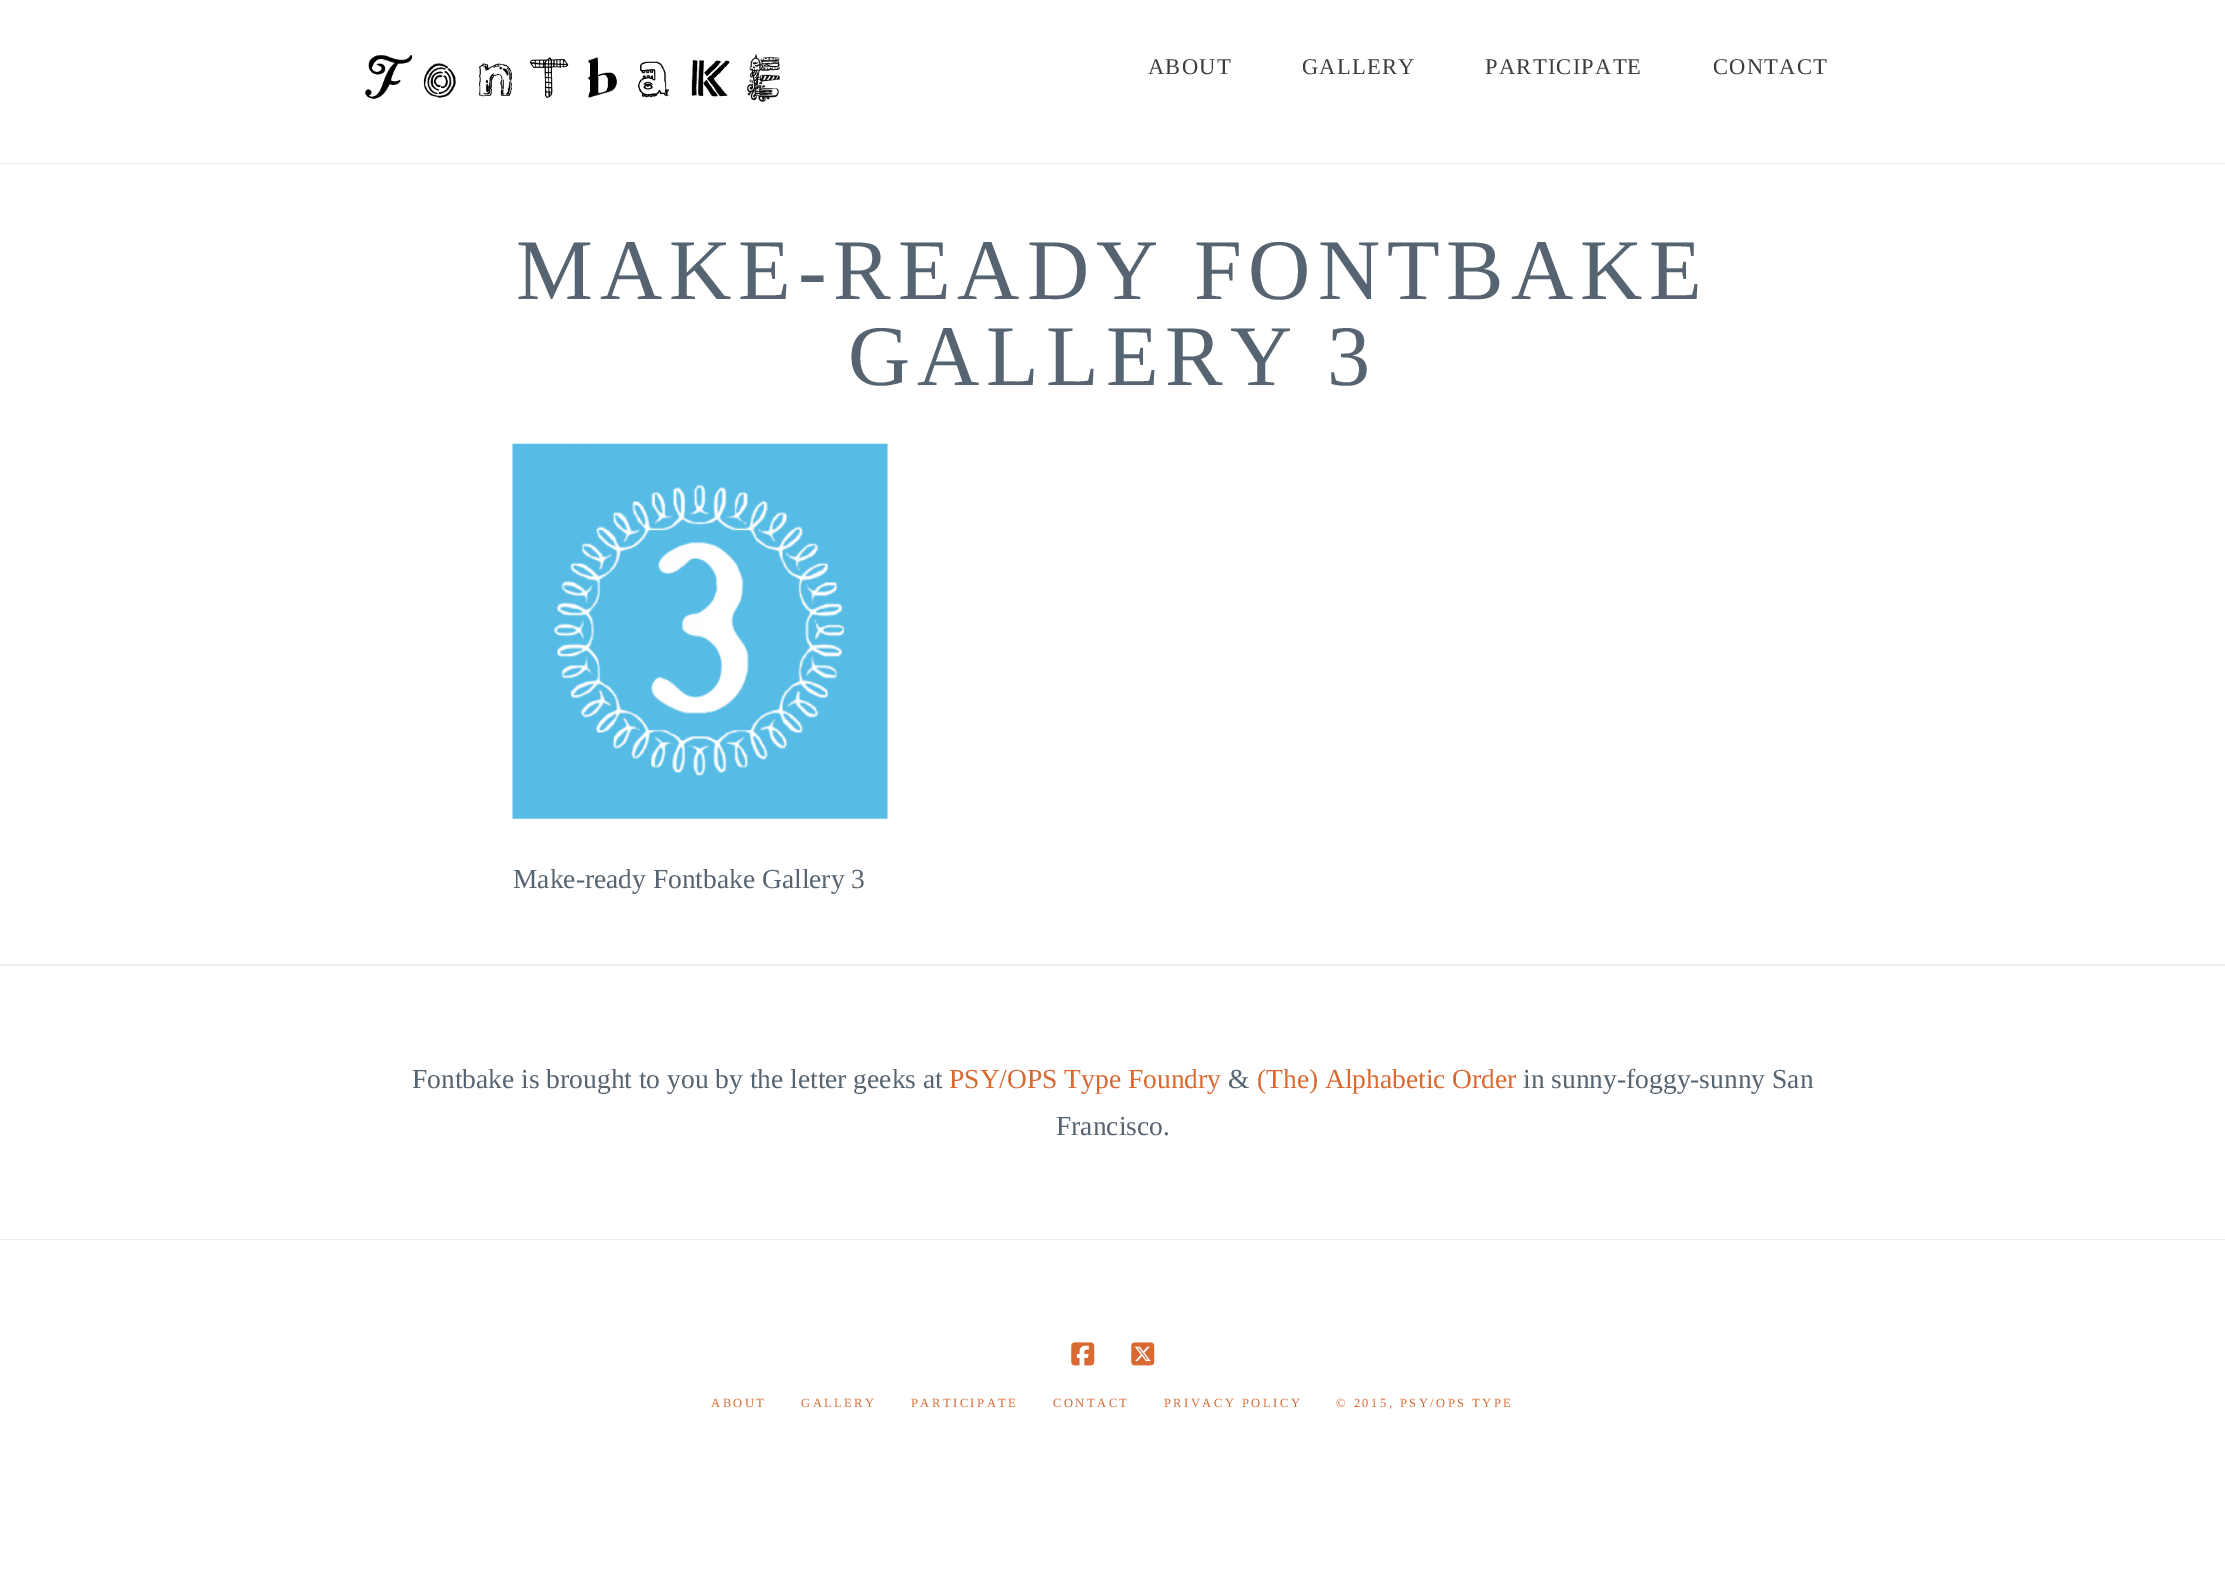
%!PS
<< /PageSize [2225 1577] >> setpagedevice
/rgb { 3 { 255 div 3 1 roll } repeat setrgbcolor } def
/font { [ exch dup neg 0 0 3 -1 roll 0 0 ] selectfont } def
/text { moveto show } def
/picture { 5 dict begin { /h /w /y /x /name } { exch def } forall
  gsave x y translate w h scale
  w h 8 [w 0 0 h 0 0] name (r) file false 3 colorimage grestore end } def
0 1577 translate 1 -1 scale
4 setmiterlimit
255 255 255 rgb
0 0 2225 1577 rectfill
236 236 236 rgb
0 163 2225 1 rectfill
(img_01.rgb) 365 54 415 48 picture
0 964 2225 2 rectfill
(img_02.rgb) 512 443 376 376 picture
0 1239 2225 1 rectfill
(img_03.rgb) 1071 1342 24 24 picture
(img_04.rgb) 1131 1342 24 24 picture
/LiberationSerif-Regular 22.5 font
61 61 61 rgb
1148 74 moveto 1.25 0 (ABOUT) ashow
1302 74 moveto 1.25 0 (GALLERY) ashow
1485 74 moveto 1.25 0 (PARTICIPATE) ashow
1713 74 moveto 1.25 0 (CONTACT) ashow
/LiberationSerif-Regular 86.3 font
86 100 113 rgb
516 299 moveto 6.9 0 (MAKE-READY FONTBAKE) ashow
848 385 moveto 6.9 0 (GALLERY 3) ashow
/LiberationSerif-Regular 27.5 font
(Make-ready Fontbake Gallery 3) 513 888 text
(Fontbake is brought to you by the letter geeks at) 412 1088 text
216 105 49 rgb
(PSY/OPS Type Foundry) 949 1088 text
86 100 113 rgb
(&) 1228 1088 text
216 105 49 rgb
(\(The\) Alphabetic Order) 1257 1088 text
86 100 113 rgb
(in sunny-foggy-sunny San) 1523 1088 text
(Francisco.) 1056 1135 text
/LiberationSerif-Regular 12.5 font
216 105 49 rgb
711 1407 moveto 2.5 0 (ABOUT) ashow
801 1407 moveto 2.5 0 (GALLERY) ashow
911 1407 moveto 2.5 0 (PARTICIPATE) ashow
1053 1407 moveto 2.5 0 (CONTACT) ashow
1164 1407 moveto 2.5 0 (PRIVACY POLICY) ashow
1336 1407 moveto 2.5 0 (© 2015, PSY/OPS TYPE) ashow
showpage
